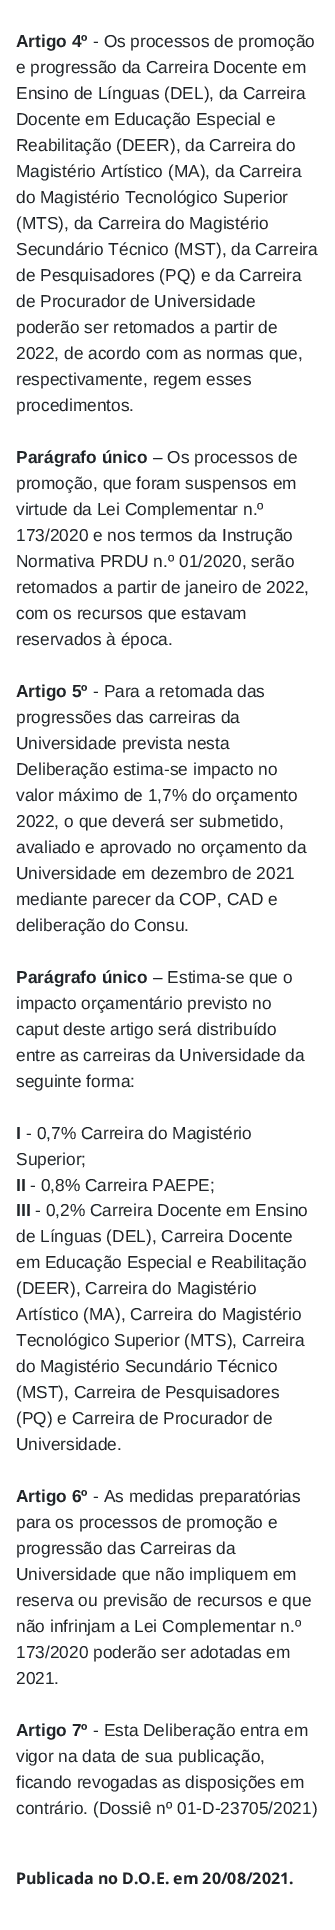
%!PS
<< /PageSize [335 1930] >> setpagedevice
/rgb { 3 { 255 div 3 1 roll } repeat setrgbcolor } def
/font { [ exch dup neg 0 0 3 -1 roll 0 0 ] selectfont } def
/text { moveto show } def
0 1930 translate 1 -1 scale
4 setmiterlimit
255 255 255 rgb
0 0 335 1930 rectfill
/LiberationSans-Bold 17.3 font
33 37 41 rgb
(Artigo 4º) 16 47 text
/LiberationSans-Regular 17.3 font
(- Os processos de promoção) 93 47 text
(e progressão da Carreira Docente em) 16 73 text
(Ensino de Línguas \(DEL\), da Carreira) 16 99 text
(Docente em Educação Especial e) 16 125 text
(Reabilitação \(DEER\), da Carreira do) 16 151 text
(Magistério Artístico \(MA\), da Carreira) 16 177 text
(do Magistério Tecnológico Superior) 16 203 text
(\(MTS\), da Carreira do Magistério) 16 229 text
(Secundário Técnico \(MST\), da Carreira) 16 255 text
(de Pesquisadores \(PQ\) e da Carreira) 16 281 text
(de Procurador de Universidade) 16 307 text
(poderão ser retomados a partir de) 16 333 text
(2022, de acordo com as normas que,) 16 359 text
(respectivamente, regem esses) 16 385 text
(procedimentos.) 16 411 text
/LiberationSans-Bold 17.3 font
(Parágrafo único) 16 463 text
/LiberationSans-Regular 17.3 font
(– Os processos de) 153 463 text
(promoção, que foram suspensos em) 16 489 text
(virtude da Lei Complementar n.º) 16 515 text
(173/2020 e nos termos da Instrução) 16 541 text
(Normativa PRDU n.º 01/2020, serão) 16 567 text
(retomados a partir de janeiro de 2022,) 16 593 text
(com os recursos que estavam) 16 619 text
(reservados à época.) 16 645 text
/LiberationSans-Bold 17.3 font
(Artigo 5º) 16 697 text
/LiberationSans-Regular 17.3 font
(- Para a retomada das) 93 697 text
(progressões das carreiras da) 16 723 text
(Universidade prevista nesta) 16 749 text
(Deliberação estima-se impacto no) 16 775 text
(valor máximo de 1,7% do orçamento) 16 801 text
(2022, o que deverá ser submetido,) 16 827 text
(avaliado e aprovado no orçamento da) 16 853 text
(Universidade em dezembro de 2021) 16 879 text
(mediante parecer da COP, CAD e) 16 905 text
(deliberação do Consu.) 16 931 text
/LiberationSans-Bold 17.3 font
(Parágrafo único) 16 983 text
/LiberationSans-Regular 17.3 font
(– Estima-se que o) 153 983 text
(impacto orçamentário previsto no) 16 1009 text
(caput deste artigo será distribuído) 16 1035 text
(entre as carreiras da Universidade da) 16 1061 text
(seguinte forma:) 16 1087 text
/LiberationSans-Bold 17.3 font
(I) 16 1139 text
/LiberationSans-Regular 17.3 font
(- 0,7% Carreira do Magistério) 26 1139 text
(Superior;) 16 1165 text
/LiberationSans-Bold 17.3 font
(II) 16 1191 text
/LiberationSans-Regular 17.3 font
(- 0,8% Carreira PAEPE;) 30 1191 text
/LiberationSans-Bold 17.3 font
(III) 16 1216 text
/LiberationSans-Regular 17.3 font
(- 0,2% Carreira Docente em Ensino) 35 1216 text
(de Línguas \(DEL\), Carreira Docente) 16 1242 text
(em Educação Especial e Reabilitação) 16 1268 text
(\(DEER\), Carreira do Magistério) 16 1294 text
(Artístico \(MA\), Carreira do Magistério) 16 1320 text
(Tecnológico Superior \(MTS\), Carreira) 16 1346 text
(do Magistério Secundário Técnico) 16 1372 text
(\(MST\), Carreira de Pesquisadores) 16 1398 text
(\(PQ\) e Carreira de Procurador de) 16 1424 text
(Universidade.) 16 1450 text
/LiberationSans-Bold 17.3 font
(Artigo 6º) 16 1502 text
/LiberationSans-Regular 17.3 font
(- As medidas preparatórias) 93 1502 text
(para os processos de promoção e) 16 1528 text
(progressão das Carreiras da) 16 1554 text
(Universidade que não impliquem em) 16 1580 text
(reserva ou previsão de recursos e que) 16 1606 text
(não infrinjam a Lei Complementar n.º) 16 1632 text
(173/2020 poderão ser adotadas em) 16 1658 text
(2021.) 16 1684 text
/LiberationSans-Bold 17.3 font
(Artigo 7º) 16 1736 text
/LiberationSans-Regular 17.3 font
(- Esta Deliberação entra em) 93 1736 text
(vigor na data de sua publicação,) 16 1762 text
(ficando revogadas as disposições em) 16 1788 text
(contrário. \(Dossiê nº 01-D-23705/2021\)) 16 1814 text
/NotoSans-Bold 16 font
(Publicada no D.O.E. em 20/08/2021.) 16 1884 text
showpage
